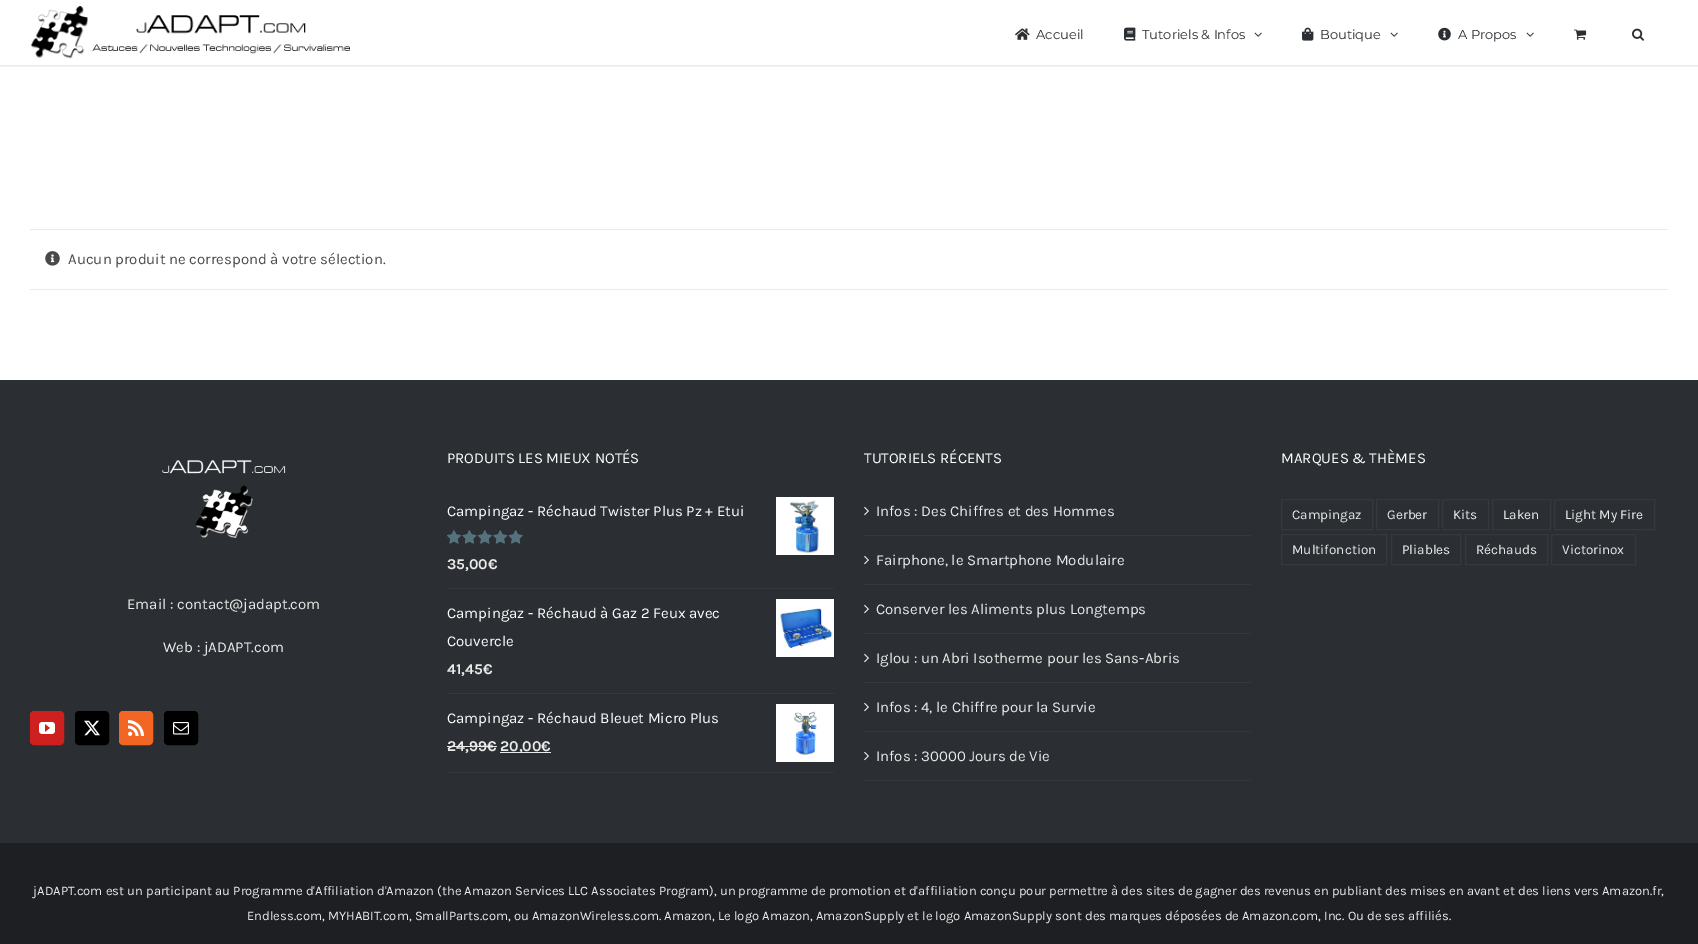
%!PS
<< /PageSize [1698 944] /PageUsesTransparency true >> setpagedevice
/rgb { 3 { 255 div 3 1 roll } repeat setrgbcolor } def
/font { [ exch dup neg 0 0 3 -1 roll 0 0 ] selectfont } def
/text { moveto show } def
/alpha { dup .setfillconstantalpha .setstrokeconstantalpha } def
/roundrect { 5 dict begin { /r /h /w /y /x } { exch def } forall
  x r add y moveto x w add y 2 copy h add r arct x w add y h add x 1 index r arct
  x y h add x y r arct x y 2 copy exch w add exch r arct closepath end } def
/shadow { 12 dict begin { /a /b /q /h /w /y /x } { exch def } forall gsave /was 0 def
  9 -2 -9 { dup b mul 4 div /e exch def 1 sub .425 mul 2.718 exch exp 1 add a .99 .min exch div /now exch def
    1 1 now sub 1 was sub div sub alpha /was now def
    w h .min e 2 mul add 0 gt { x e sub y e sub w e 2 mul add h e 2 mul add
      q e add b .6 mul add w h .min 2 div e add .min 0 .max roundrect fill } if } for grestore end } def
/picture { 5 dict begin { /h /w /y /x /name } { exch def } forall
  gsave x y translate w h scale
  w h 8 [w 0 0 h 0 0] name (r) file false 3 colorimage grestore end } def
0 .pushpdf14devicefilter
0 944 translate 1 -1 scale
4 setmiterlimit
255 255 255 rgb
0 0 1698 944 rectfill
gsave
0 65 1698 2 rectclip
0 0 0 rgb
0 1 1698 65 0 1.5 0.12 shadow
grestore
(img_01.rgb) 31 6 319 53 picture
(img_02.rgb) 1015 28 15 12 picture
(img_03.rgb) 1124 27 12 14 picture
(img_04.rgb) 1254 32 8 5 picture
(img_05.rgb) 1302 27 12 14 picture
(img_04.rgb) 1390 32 8 5 picture
(img_06.rgb) 1438 27 13 14 picture
(img_04.rgb) 1526 32 8 5 picture
(img_07.rgb) 1574 29 13 11 picture
(img_08.rgb) 1632 28 12 13 picture
234 234 234 rgb
30 229 1638 1 rectfill
30 289 1638 1 rectfill
(img_09.rgb) 45 251 15 15 picture
43 46 50 rgb
0 380 1698 463 rectfill
53 56 60 rgb
447 588 387 1 rectfill
(img_10.rgb) 776 497 58 58 picture
(img_11.rgb) 447 530 76 14 picture
(img_12.rgb) 447 530 76 14 picture
447 693 387 1 rectfill
(img_13.rgb) 776 599 58 58 picture
447 772 387 1 rectfill
(img_14.rgb) 776 704 58 58 picture
234 234 234 rgb
447 746 50 1 rectfill
500 752 51 1 rectfill
53 56 60 rgb
864 535 387 1 rectfill
(img_15.rgb) 864 506 5 10 picture
864 584 387 1 rectfill
(img_15.rgb) 864 555 5 10 picture
864 633 387 1 rectfill
(img_15.rgb) 864 604 5 10 picture
864 682 387 1 rectfill
(img_15.rgb) 864 653 5 10 picture
864 731 387 1 rectfill
(img_15.rgb) 864 702 5 10 picture
864 780 387 1 rectfill
(img_15.rgb) 864 751 5 10 picture
1281.5 499.5 91 30 rectstroke
1376.5 499.5 62 30 rectstroke
1442.5 499.5 46 30 rectstroke
1492.5 499.5 58 30 rectstroke
1554.5 499.5 100 30 rectstroke
1281.5 534.5 105 30 rectstroke
1391.5 534.5 69 30 rectstroke
1465.5 534.5 82 30 rectstroke
1551.5 534.5 84 30 rectstroke
(img_16.rgb) 162 460 124 78 picture
205 32 31 rgb
30.5 711.5 33 33 3.5 roundrect gsave fill grestore
stroke
(img_17.rgb) 39 722 16 12 picture
0 0 0 rgb
75.5 711.5 33 33 3.5 roundrect gsave fill grestore
stroke
(img_18.rgb) 84 720 16 16 picture
242 101 34 rgb
119.5 711.5 33 33 3.5 roundrect gsave fill grestore
stroke
(img_19.rgb) 128 720 16 16 picture
0 0 0 rgb
164.5 711.5 33 33 3.5 roundrect gsave fill grestore
stroke
(img_20.rgb) 173 722 16 13 picture
29 31 34 rgb
0 843 1698 101 rectfill
/Montserrat-Regular 13 font
43 46 50 rgb
(Accueil) 1036 39 text
(Tutoriels & Infos) 1142 39 text
(Boutique) 1320 39 text
(A Propos) 1458 39 text
/Karla-Regular 15 font
73 73 73 rgb
(Aucun produit ne correspond à votre sélection.) 68 264 text
255 255 255 rgb
(PRODUITS LES MIEUX NOTÉS) 447 463 text
(Campingaz - Réchaud Twister Plus Pz + Etui) 447 516 text
/Karla-Bold 15 font
234 234 234 rgb
(35,00€) 447 569 text
/Karla-Regular 15 font
255 255 255 rgb
(Campingaz - Réchaud à Gaz 2 Feux avec) 447 618 text
(Couvercle) 447 646 text
/Karla-Bold 15 font
234 234 234 rgb
(41,45€) 447 674 text
/Karla-Regular 15 font
255 255 255 rgb
(Campingaz - Réchaud Bleuet Micro Plus) 447 723 text
/Karla-Bold 15 font
234 234 234 rgb
(24,99€) 447 751 text
(20,00€) 500 751 text
/Karla-Regular 15 font
255 255 255 rgb
(TUTORIELS RÉCENTS) 864 463 text
234 234 234 rgb
(Infos : Des Chiffres et des Hommes) 876 516 text
(Fairphone, le Smartphone Modulaire) 876 565 text
(Conserver les Aliments plus Longtemps) 876 614 text
(Iglou : un Abri Isotherme pour les Sans-Abris) 876 663 text
(Infos : 4, le Chiffre pour la Survie) 876 712 text
(Infos : 30000 Jours de Vie) 876 761 text
255 255 255 rgb
(MARQUES & THÈMES) 1281 463 text
/Karla-Regular 13.5 font
234 234 234 rgb
(Campingaz) 1292 519 text
(Gerber) 1387 519 text
(Kits) 1453 519 text
(Laken) 1503 519 text
(Light My Fire) 1565 519 text
(Multifonction) 1292 554 text
(Pliables) 1402 554 text
(Réchauds) 1476 554 text
(Victorinox) 1562 554 text
/Karla-Regular 15 font
(Email : contact@jadapt.com) 127 609 text
(Web : jADAPT.com) 163 652 text
/Karla-Regular 13 font
(jADAPT.com est un participant au Programme d'Affiliation d'Amazon \(the Amazon Services LLC Associates Program\), un programme de promotion et d'affiliation conçu pour permettre à des sites de gagner des revenus en publiant des mises en avant et des liens vers Amazon.fr,) 33 895 text
(Endless.com, MYHABIT.com, SmallParts.com, ou AmazonWireless.com. Amazon, Le logo Amazon, AmazonSupply et le logo AmazonSupply sont des marques déposées de Amazon.com, Inc. Ou de ses affiliés.) 247 920 text
.poppdf14devicefilter showpage
